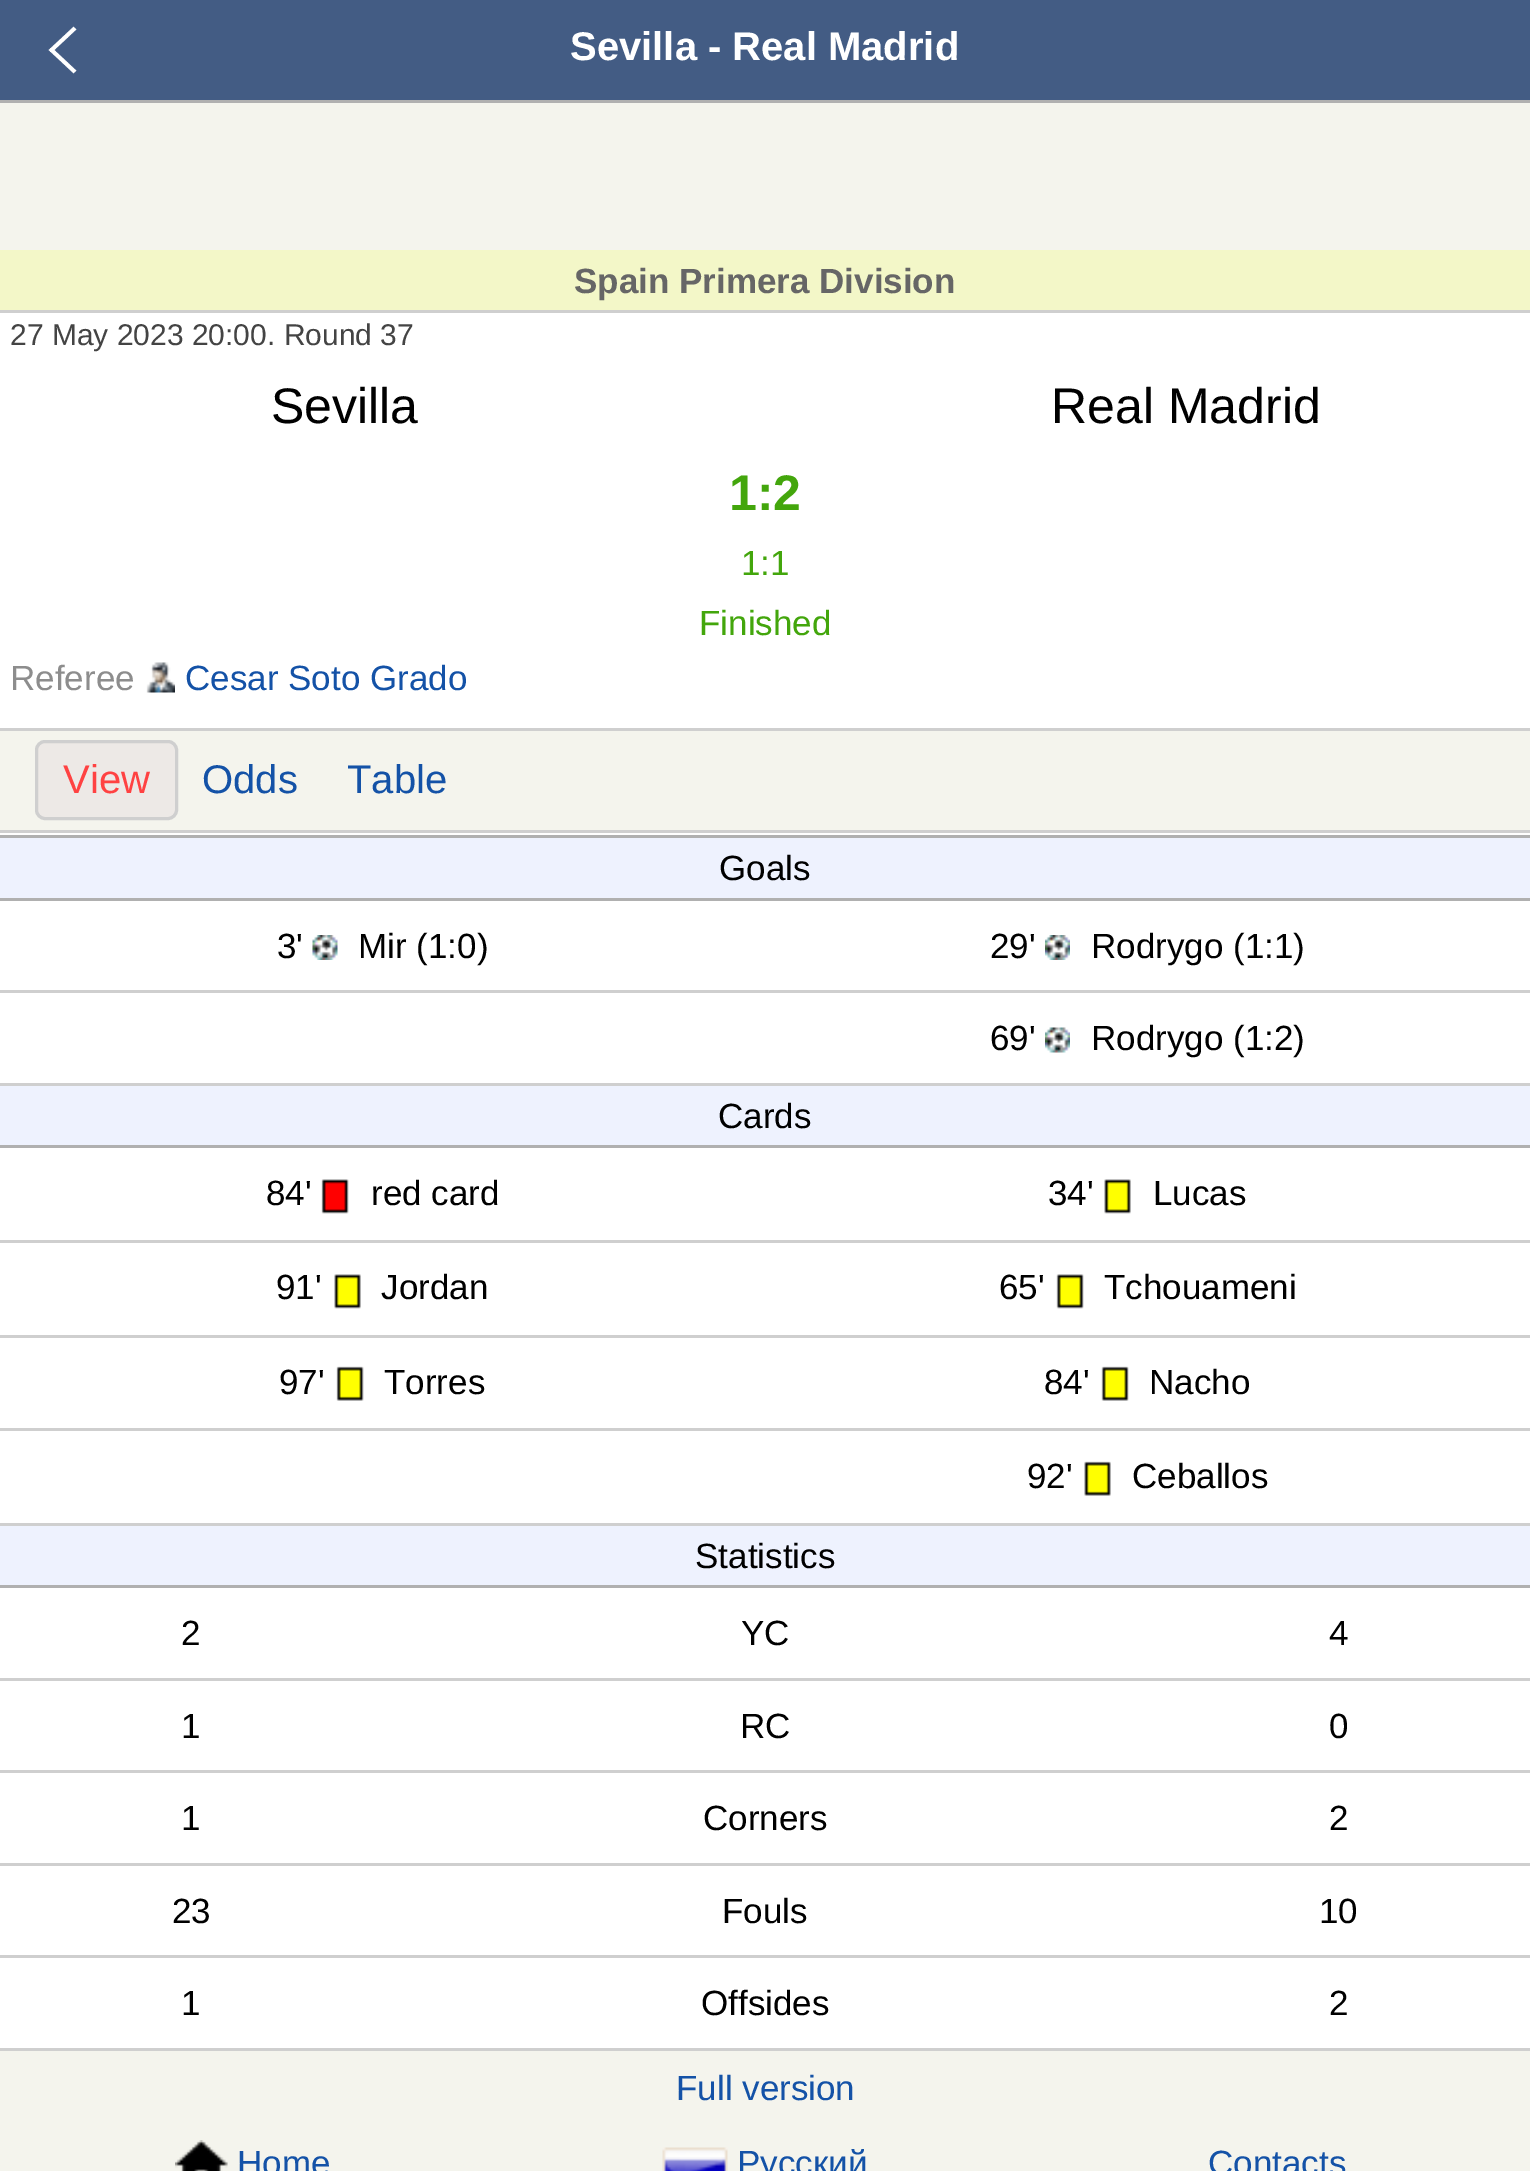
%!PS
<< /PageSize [1530 2171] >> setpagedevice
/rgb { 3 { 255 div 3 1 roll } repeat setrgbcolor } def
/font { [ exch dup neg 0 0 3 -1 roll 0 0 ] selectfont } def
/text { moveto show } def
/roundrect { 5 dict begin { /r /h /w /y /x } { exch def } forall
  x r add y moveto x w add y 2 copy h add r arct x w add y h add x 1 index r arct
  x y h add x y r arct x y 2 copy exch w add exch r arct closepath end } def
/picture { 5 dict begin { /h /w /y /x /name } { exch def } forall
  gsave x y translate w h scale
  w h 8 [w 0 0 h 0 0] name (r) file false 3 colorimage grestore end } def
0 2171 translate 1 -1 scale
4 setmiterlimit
244 244 237 rgb
0 0 1530 2171 rectfill
176 176 176 rgb
0 100 1530 3 rectfill
67 92 132 rgb
0 0 1530 100 rectfill
(img_01.rgb) 48 26 29 48 picture
255 255 255 rgb
0 313 1530 1735 rectfill
243 247 200 rgb
0 250 1530 60 rectfill
207 207 207 rgb
0 310 1530 3 rectfill
(img_02.rgb) 146 662 29 31 picture
244 244 237 rgb
0 731 1530 99 rectfill
207 207 207 rgb
0 728 1530 3 rectfill
0 830 1530 3 rectfill
237 233 230 rgb
36.5 741.5 140 77 8.5 roundrect gsave fill grestore
207 207 207 rgb
3 setlinewidth
stroke
238 242 254 rgb
0 838 1530 60 rectfill
176 176 176 rgb
0 835 1530 3 rectfill
0 898 1530 3 rectfill
207 207 207 rgb
0 990 1530 3 rectfill
(img_03.rgb) 312 935 26 25 picture
(img_04.rgb) 1045 935 25 25 picture
0 1083 1530 3 rectfill
(img_05.rgb) 1045 1027 25 26 picture
238 242 254 rgb
0 1086 1530 59 rectfill
176 176 176 rgb
0 1145 1530 3 rectfill
207 207 207 rgb
0 1240 1530 3 rectfill
(img_06.rgb) 321 1179 28 35 picture
(img_07.rgb) 1104 1179 27 35 picture
0 1335 1530 3 rectfill
(img_08.rgb) 334 1274 27 35 picture
(img_09.rgb) 1056 1274 28 35 picture
0 1428 1530 3 rectfill
(img_10.rgb) 336 1366 28 35 picture
(img_11.rgb) 1101 1366 28 35 picture
0 1523 1530 3 rectfill
(img_12.rgb) 1084 1461 27 35 picture
238 242 254 rgb
0 1526 1530 59 rectfill
176 176 176 rgb
0 1585 1530 3 rectfill
207 207 207 rgb
0 1678 1530 3 rectfill
0 1770 1530 3 rectfill
0 1863 1530 3 rectfill
0 1955 1530 3 rectfill
0 2048 1530 3 rectfill
(img_13.rgb) 175 2140 53 31 picture
(img_14.rgb) 662 2147 66 24 picture
/LiberationSans-Bold 40 font
255 255 255 rgb
(Sevilla - Real Madrid) 570 60 text
/LiberationSans-Bold 35 font
102 102 102 rgb
(Spain Primera Division) 574 293 text
/LiberationSans-Regular 30 font
68 68 68 rgb
(27 May 2023 20:00. Round 37) 10 345 text
/LiberationSans-Regular 50 font
0 0 0 rgb
(Sevilla) 271 423 text
(Real Madrid) 1051 423 text
/LiberationSans-Bold 50 font
67 166 12 rgb
(1:2) 729 510 text
/LiberationSans-Regular 35 font
(1:1) 741 575 text
(Finished) 699 635 text
141 141 141 rgb
(Referee) 10 690 text
20 82 167 rgb
(Cesar Soto Grado) 185 690 text
/LiberationSans-Regular 40 font
255 66 66 rgb
(View) 63 793 text
20 82 167 rgb
(Odds) 202 793 text
(Table) 347 793 text
/LiberationSans-Regular 35 font
0 0 0 rgb
(Goals) 719 880 text
(3') 277 958 text
(Mir \(1:0\)) 358 958 text
(29') 990 958 text
(Rodrygo \(1:1\)) 1091 958 text
(69') 990 1050 text
(Rodrygo \(1:2\)) 1091 1050 text
(Cards) 718 1128 text
(84') 266 1205 text
(red card) 371 1205 text
(34') 1048 1205 text
(Lucas) 1153 1205 text
(91') 276 1299 text
(Jordan) 381 1299 text
(65') 999 1299 text
(Tchouameni) 1104 1299 text
(97') 279 1394 text
(Torres) 384 1394 text
(84') 1044 1394 text
(Nacho) 1149 1394 text
(92') 1027 1488 text
(Ceballos) 1132 1488 text
(Statistics) 695 1568 text
(2) 181 1645 text
(YC) 741 1645 text
(4) 1329 1645 text
(1) 181 1738 text
(RC) 740 1738 text
(0) 1329 1738 text
(1) 181 1830 text
(Corners) 703 1830 text
(2) 1329 1830 text
(23) 172 1923 text
(Fouls) 722 1923 text
(10) 1319 1923 text
(1) 181 2015 text
(Offsides) 701 2015 text
(2) 1329 2015 text
20 82 167 rgb
(Full version) 676 2100 text
(Home) 237 2175 text
(Русский) 737 2175 text
(Contacts) 1208 2175 text
showpage
